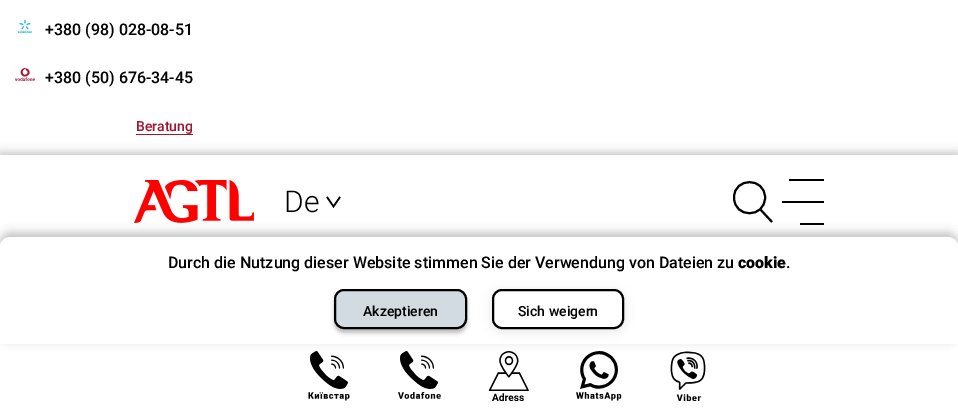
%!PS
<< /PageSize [958 408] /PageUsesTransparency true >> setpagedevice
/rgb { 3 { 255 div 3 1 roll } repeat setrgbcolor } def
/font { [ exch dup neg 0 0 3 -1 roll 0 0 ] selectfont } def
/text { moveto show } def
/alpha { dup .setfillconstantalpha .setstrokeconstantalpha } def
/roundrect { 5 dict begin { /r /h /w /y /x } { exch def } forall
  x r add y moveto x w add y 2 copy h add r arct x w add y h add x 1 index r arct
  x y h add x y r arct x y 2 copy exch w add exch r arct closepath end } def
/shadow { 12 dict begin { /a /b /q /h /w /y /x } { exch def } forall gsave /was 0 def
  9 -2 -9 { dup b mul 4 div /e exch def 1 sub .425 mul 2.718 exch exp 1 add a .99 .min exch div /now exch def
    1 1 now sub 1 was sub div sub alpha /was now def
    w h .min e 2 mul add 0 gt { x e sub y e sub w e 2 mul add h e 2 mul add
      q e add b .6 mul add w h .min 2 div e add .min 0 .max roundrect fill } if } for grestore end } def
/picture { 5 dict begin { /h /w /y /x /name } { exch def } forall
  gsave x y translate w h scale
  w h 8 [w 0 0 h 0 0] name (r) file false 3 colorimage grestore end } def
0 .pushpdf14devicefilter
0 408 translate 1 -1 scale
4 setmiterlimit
255 255 255 rgb
0 0 958 408 rectfill
(img_01.rgb) 17 20 16 13 picture
(img_02.rgb) 15 68 20 13 picture
160 23 50 rgb
136 134 57 1 rectfill
0 0 0 rgb
0 153 958 93 0 5 0.25 shadow
255 255 255 rgb
0 155 958 92 rectfill
(img_03.rgb) 134 180 120 43 picture
0 0 0 rgb
1.6 setlinewidth
327 197 moveto 6.5 9.5 rlineto 6.5 -9.5 rlineto stroke
2 setlinewidth
759.5 208.5 moveto 12.5 13.5 rlineto 765 197.5 moveto 0 21 -31 21 -31 0 rcurveto 0 -20.5 31 -20.5 31 0 rcurveto closepath stroke
789 179 35 2 rectfill
782 201 42 2 rectfill
800 223 24 2 rectfill
(img_04.rgb) 308 351 42 50 picture
(img_05.rgb) 398 351 43 48 picture
(img_06.rgb) 488 351 41 50 picture
(img_07.rgb) 576 351 46 50 picture
(img_08.rgb) 670 351 36 50 picture
0 233 958 107 10 5 0.25 shadow
255 255 255 rgb
10 237 moveto 938 0 rlineto 5.5 0 10 4.5 10 10 rcurveto 0 97 rlineto -958 0 rlineto 0 -97 rlineto 0 -5.5 4.5 -10 10 -10 rcurveto closepath fill
0 0 0 rgb
334 293 133 40 10 2 0.25 shadow
209 219 225 rgb
335 290 131 38 9 roundrect gsave fill grestore
0 0 0 rgb
stroke
gsave
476 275 moveto 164 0 rlineto 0 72 rlineto -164 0 rlineto closepath 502 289 moveto 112 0 rlineto 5.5 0 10 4.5 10 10 rcurveto 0 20 rlineto 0 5.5 -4.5 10 -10 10 rcurveto -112 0 rlineto -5.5 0 -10 -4.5 -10 -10 rcurveto 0 -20 rlineto 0 -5.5 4.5 -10 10 -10 rcurveto closepath eoclip newpath
492 291 132 40 10 5 0.1 shadow
grestore
493 290 130 38 9 roundrect stroke
/Roboto-Medium 16 font
(+380 \(98\) 028-08-51) 45 35 text
(+380 \(50\) 676-34-45) 45 83 text
/Roboto-Medium 14 font
160 23 50 rgb
(Beratung) 136 131 text
/Roboto-Light 30 font
0 0 0 rgb
(De) 284 212 text
/Roboto-Medium 16 font
(Durch die Nutzung dieser Website stimmen Sie der Verwendung von Dateien zu) 168 268 text
/Roboto-Black 16 font
(cookie) 738 268 text
/Roboto-Medium 16 font
(.) 786 268 text
/Roboto-Medium 14 font
(Akzeptieren) 363 316 text
(Sich weigern) 518 316 text
.poppdf14devicefilter showpage
